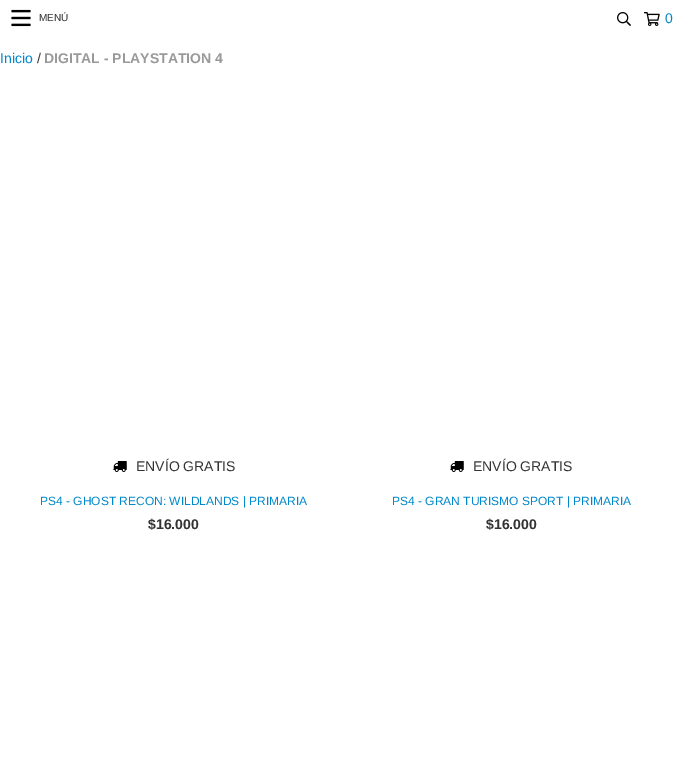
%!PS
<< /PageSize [685 778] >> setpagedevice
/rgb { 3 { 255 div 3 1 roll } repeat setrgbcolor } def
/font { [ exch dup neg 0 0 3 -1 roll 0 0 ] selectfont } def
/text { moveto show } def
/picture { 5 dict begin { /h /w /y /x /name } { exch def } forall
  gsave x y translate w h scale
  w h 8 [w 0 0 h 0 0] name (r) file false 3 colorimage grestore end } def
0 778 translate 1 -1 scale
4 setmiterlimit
255 255 255 rgb
0 0 685 778 rectfill
(img_01.rgb) 11 9 20 18 picture
(img_02.rgb) 617 12 14 14 picture
(img_03.rgb) 644 12 16 14 picture
(img_04.rgb) 113 461 14 11 picture
(img_04.rgb) 450 461 14 11 picture
/LiberationSans-Regular 10 font
51 51 51 rgb
(MENÚ) 39 21 text
/LiberationSans-Regular 14 font
0 136 204 rgb
665 23 moveto 1 0 (0) ashow
(Inicio) 0 63 text
51 51 51 rgb
(/) 37 63 text
/LiberationSans-Bold 14 font
153 153 153 rgb
(DIGITAL - PLAYSTATION 4) 44 63 text
/LiberationSans-Regular 14 font
51 51 51 rgb
(ENVÍO GRATIS) 136 471 text
/LiberationSans-Regular 12 font
0 136 204 rgb
(PS4 - GHOST RECON: WILDLANDS | PRIMARIA) 40 505 text
/LiberationSans-Bold 14 font
51 51 51 rgb
($16.000) 148 529 text
/LiberationSans-Regular 14 font
(ENVÍO GRATIS) 473 471 text
/LiberationSans-Regular 12 font
0 136 204 rgb
(PS4 - GRAN TURISMO SPORT | PRIMARIA) 392 505 text
/LiberationSans-Bold 14 font
51 51 51 rgb
($16.000) 486 529 text
showpage
